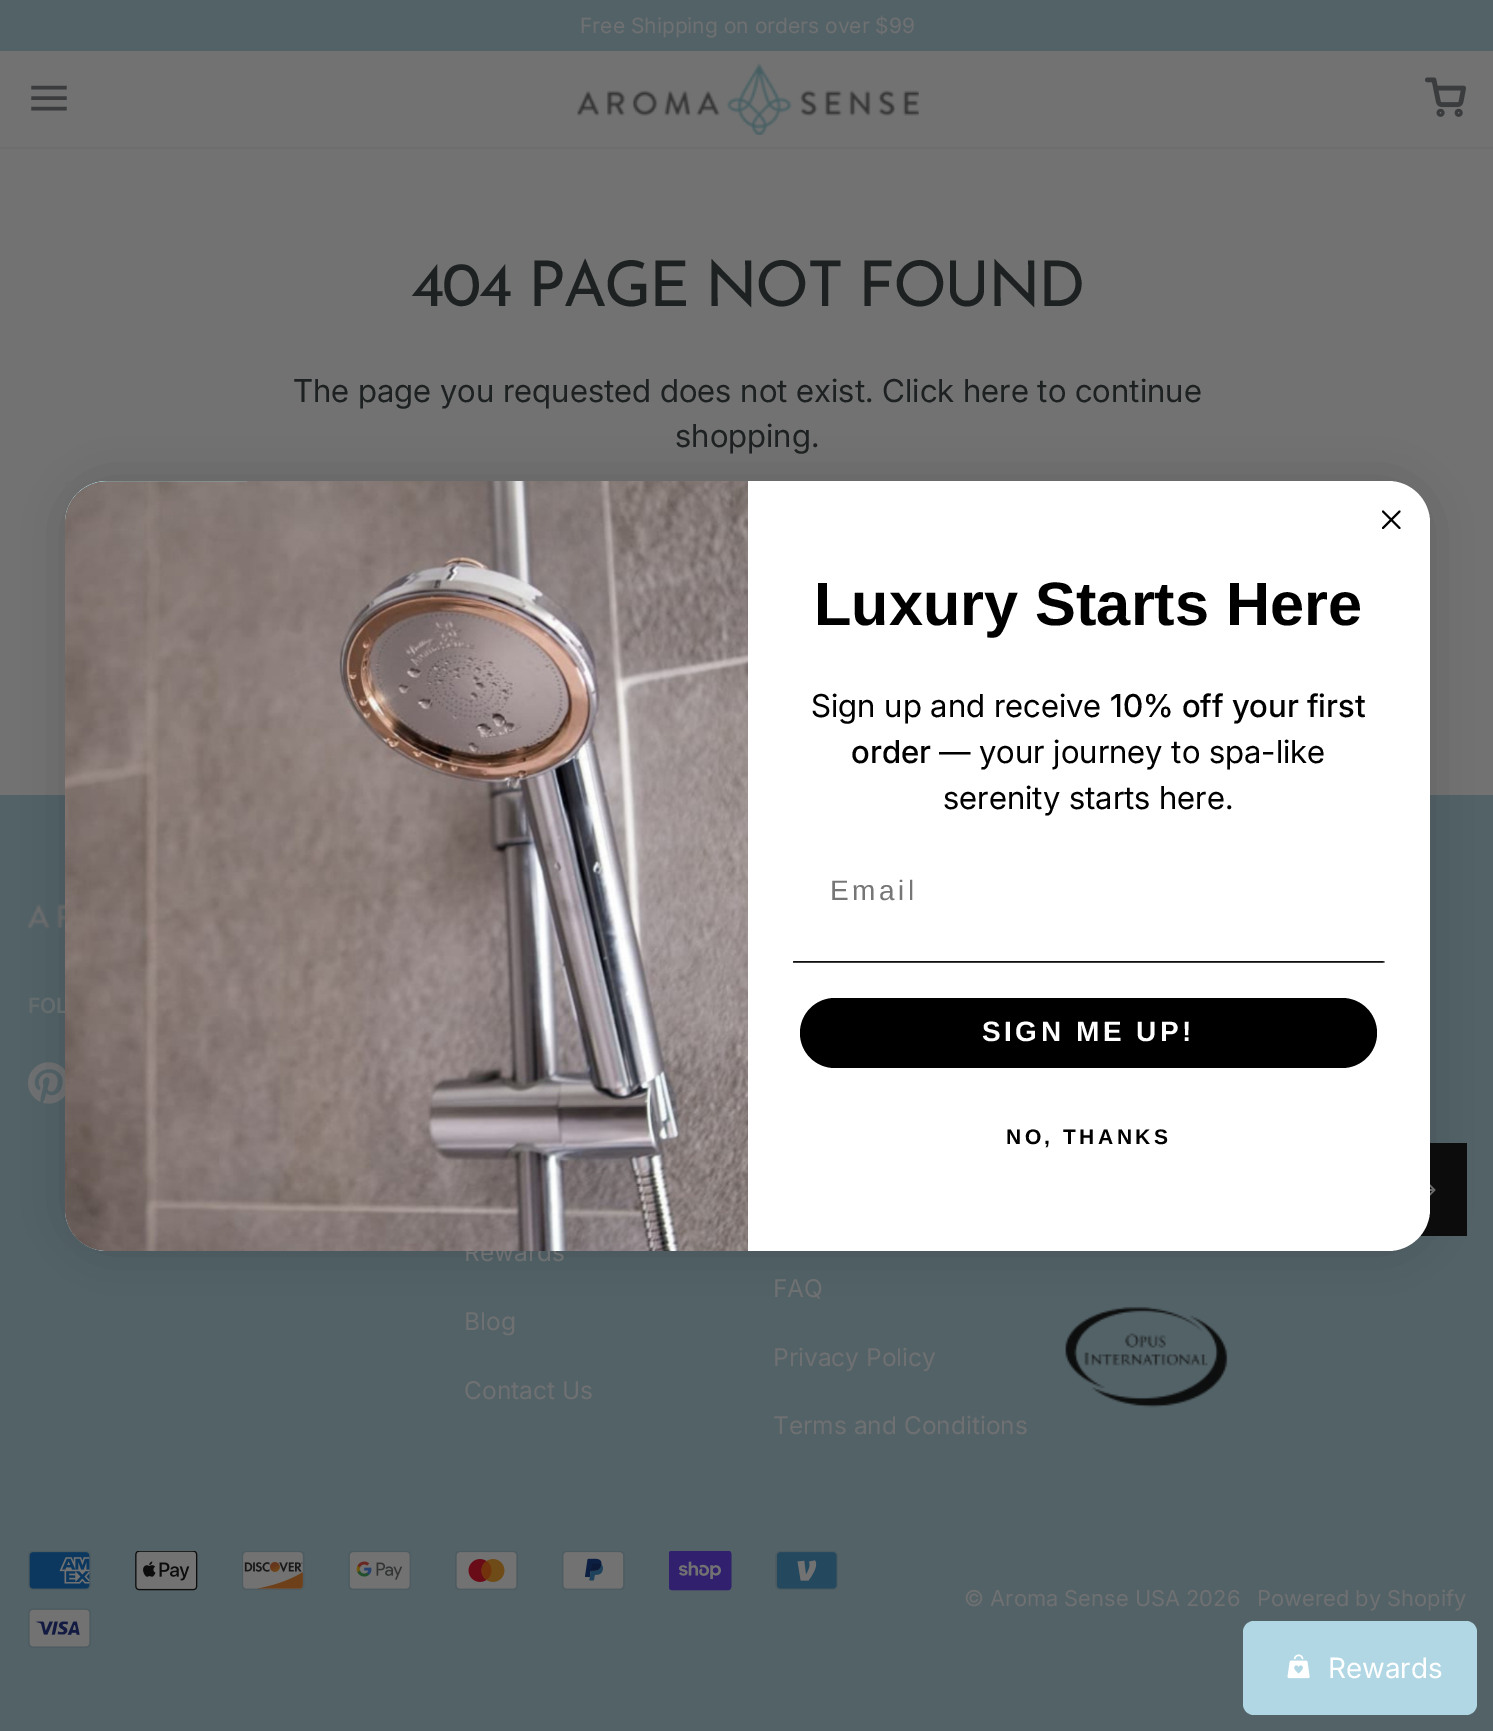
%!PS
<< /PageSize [1493 1731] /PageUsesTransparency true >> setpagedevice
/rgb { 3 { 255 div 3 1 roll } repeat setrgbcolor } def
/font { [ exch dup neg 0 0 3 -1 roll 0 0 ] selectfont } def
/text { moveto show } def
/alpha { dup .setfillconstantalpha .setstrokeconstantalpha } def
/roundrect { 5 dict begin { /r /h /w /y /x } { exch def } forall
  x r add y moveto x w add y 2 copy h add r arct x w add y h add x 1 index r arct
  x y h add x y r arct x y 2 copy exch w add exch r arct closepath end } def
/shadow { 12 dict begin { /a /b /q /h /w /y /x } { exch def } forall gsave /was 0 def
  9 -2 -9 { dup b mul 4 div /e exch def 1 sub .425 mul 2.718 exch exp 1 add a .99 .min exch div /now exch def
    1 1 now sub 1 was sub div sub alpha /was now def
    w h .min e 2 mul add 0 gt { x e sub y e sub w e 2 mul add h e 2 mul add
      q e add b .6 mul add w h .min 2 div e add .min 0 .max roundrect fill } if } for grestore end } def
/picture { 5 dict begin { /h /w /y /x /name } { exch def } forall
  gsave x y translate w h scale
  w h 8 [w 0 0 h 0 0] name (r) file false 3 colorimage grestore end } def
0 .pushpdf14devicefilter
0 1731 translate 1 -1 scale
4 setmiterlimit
114 114 114 rgb
0 0 1493 1731 rectfill
83 98 103 rgb
0 0 1493 51 rectfill
111 110 110 rgb
0 147 1493 2 rectfill
58 60 61 rgb
3.5 setlinewidth
2 setlinecap
65 87.5 moveto -32 0 rlineto 65 98 moveto -32 0 rlineto 65 108.5 moveto -32 0 rlineto stroke
(img_01.rgb) 577 63 342 72 picture
(img_02.rgb) 1425 77 41 40 picture
83 98 103 rgb
0 795 1493 936 rectfill
(img_05.rgb) 28 904 37 26 picture
(img_06.rgb) 28 1062 37 42 picture
12 12 12 rgb
1420 1143 47 93 rectfill
114 114 114 rgb
1.7 setlinewidth
1 setlinecap
1 setlinejoin
1407 1190 moveto 27.5 0 rlineto 1423 1178.5 moveto 11.5 11.5 rlineto -11.5 11.5 rlineto stroke
(img_07.rgb) 1065 1306 163 102 picture
0 0 0 rgb
65 481 1365 770 42 26 0.15 shadow
(img_08.rgb) 28 1551 63 39 picture
(img_09.rgb) 135 1551 63 40 picture
(img_10.rgb) 242 1551 63 39 picture
(img_11.rgb) 348 1551 63 39 picture
(img_12.rgb) 455 1551 63 39 picture
(img_13.rgb) 562 1551 63 39 picture
(img_14.rgb) 669 1551 63 40 picture
(img_15.rgb) 775 1551 63 39 picture
(img_16.rgb) 28 1608 63 40 picture
177 215 228 rgb
1243 1621 234 94 11 roundrect fill
(img_17.rgb) 1287 1654 23 25 picture
/Inter-Regular 21 font
111 112 113 rgb
(Free Shipping on orders over $99) 580 33 text
/JosefinSans-Regular 63 font
30 33 34 rgb
411 306 moveto -2.5 0 (404 PAGE NOT FOUND) ashow
/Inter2-Regular 31.5 font
(The page you requested does not exist. Click here to continue) 293 402 text
(shopping.) 675 447 text
/Inter-SemiBold 21 font
100 107 109 rgb
(FOL) 28 1013 text
/Inter-Regular 24.5 font
111 112 113 rgb
(Rewards) 464 1261 text
255 255 255 rgb
65 481 1365 770 42 roundrect fill
0 0 0 rgb
2.1 setlinewidth
1383 511.5 moveto 16.5 16.5 rlineto 1383 528 moveto 16.5 -16.5 rlineto closepath stroke
/LiberationSans-Bold 21 font
1006 1144 moveto 3.5 0 (NO, THANKS) ashow
800 998 577 70 35 roundrect fill
/LiberationSans-Bold 28 font
255 255 255 rgb
982 1041 moveto 3.5 0 (SIGN ME UP!) ashow
(img_04.rgb) 793 961 592 2 picture
/LiberationSans-Regular 28 font
118 118 118 rgb
830 900 moveto 3.5 0 (Email) ashow
/Inter2-Regular 31.5 font
0 0 0 rgb
(serenity starts here.) 943 809 text
(— your journey to spa-like) 939 763 text
/Inter-Medium 31.5 font
(order) 851 763 text
(10% off your first) 1110 717 text
/Inter2-Regular 31.5 font
(Sign up and receive) 811 717 text
/LiberationSans-Bold 61.25 font
(Luxury Starts Here) 814 625 text
141 205 216 rgb
107 481 moveto 640 0 rlineto 0 770 rlineto -640 0 rlineto -23 0 -42 -19 -42 -42 rcurveto 0 -686 rlineto 0 -23 19 -42 42 -42 rcurveto closepath fill
(img_03.rgb) 65 481 683 770 picture
/Inter-Regular 24.5 font
111 112 113 rgb
(Blog) 464 1330 text
(Contact Us) 464 1399 text
(FAQ) 773 1297 text
(Privacy Policy) 773 1366 text
(Terms and Conditions) 773 1434 text
/Inter-Regular 21.9 font
(© Aroma Sense USA) 964 1606 text
(2026) 1186 1606 text
(Powered by Shopify) 1257 1606 text
/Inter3-Regular 28 font
255 255 255 rgb
(Rewards) 1328 1678 text
.poppdf14devicefilter showpage
